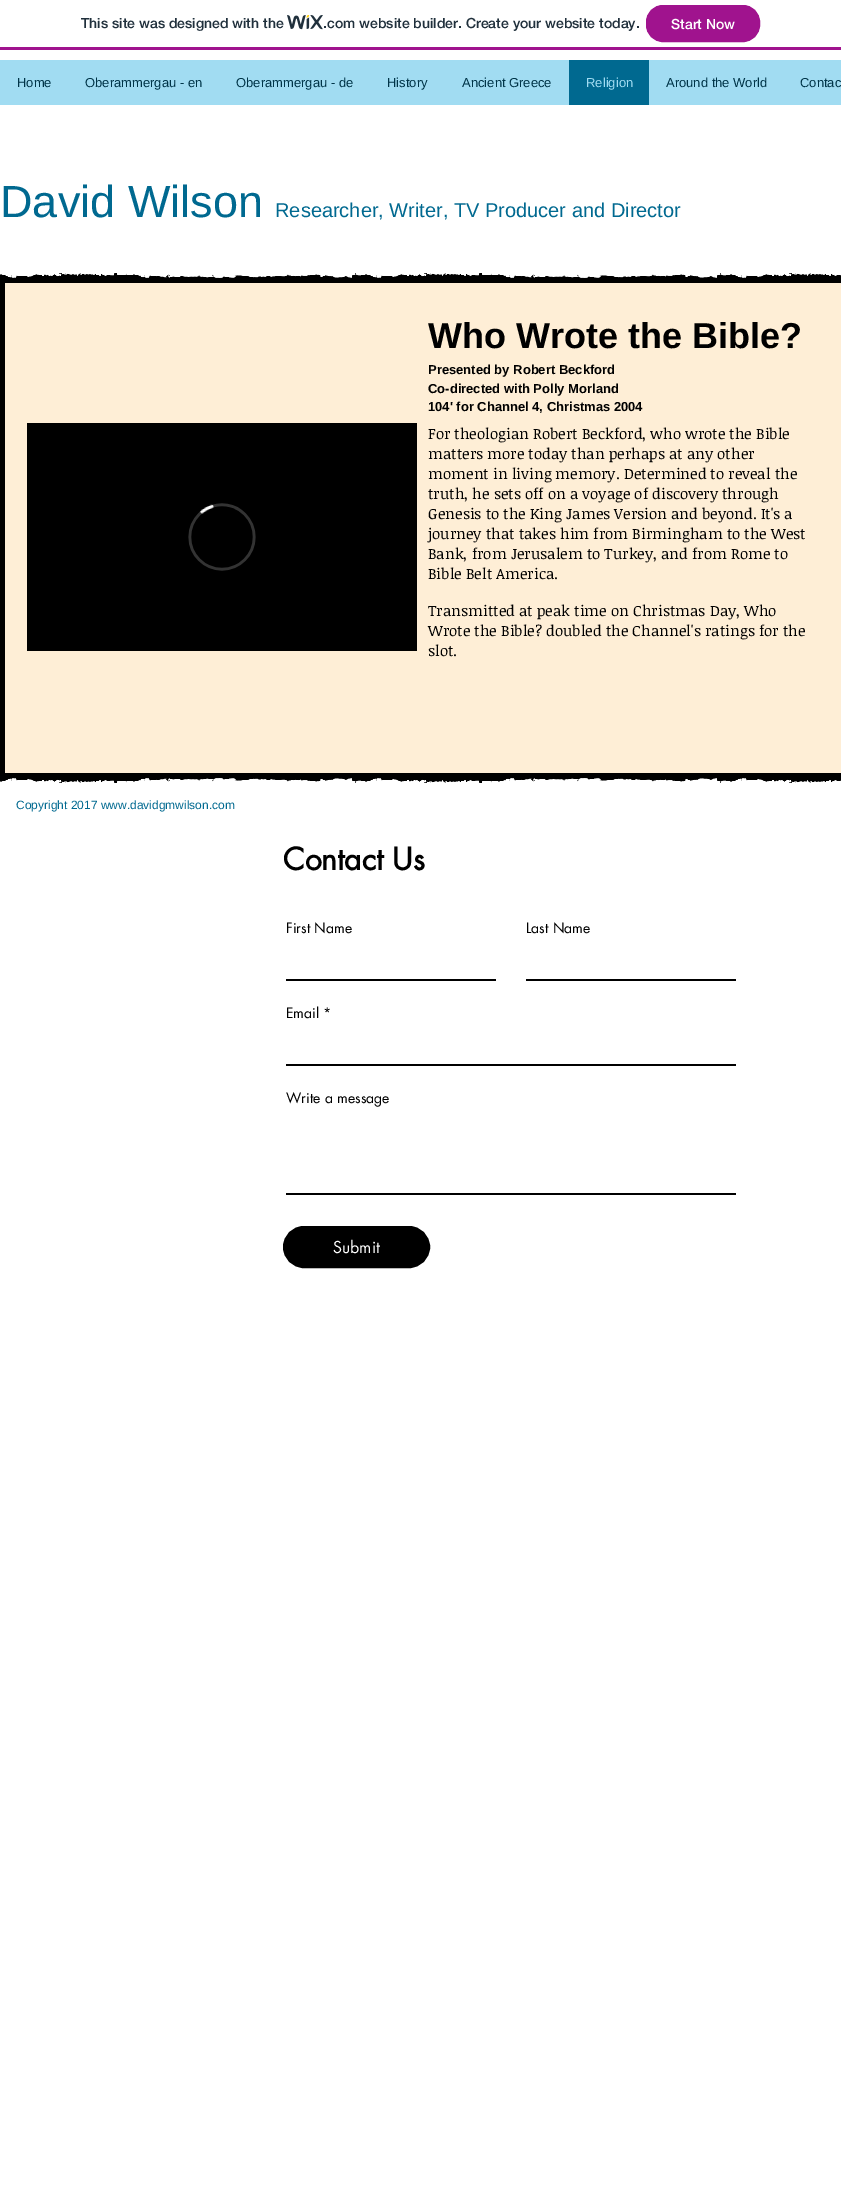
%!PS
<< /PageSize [841 2208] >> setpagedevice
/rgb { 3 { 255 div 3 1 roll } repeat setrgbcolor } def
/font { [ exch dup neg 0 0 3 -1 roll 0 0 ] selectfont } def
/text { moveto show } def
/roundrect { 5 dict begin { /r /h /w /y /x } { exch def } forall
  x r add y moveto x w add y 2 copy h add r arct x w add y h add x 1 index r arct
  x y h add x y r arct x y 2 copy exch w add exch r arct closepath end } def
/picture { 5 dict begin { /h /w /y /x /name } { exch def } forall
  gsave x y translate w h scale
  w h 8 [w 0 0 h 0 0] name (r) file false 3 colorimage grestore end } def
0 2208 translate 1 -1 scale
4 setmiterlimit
255 255 255 rgb
0 0 841 2208 rectfill
160 19 142 rgb
0 47 841 3 rectfill
(img_01.rgb) 287 15 36 15 picture
646.5 5.5 113 36 16.5 roundrect gsave fill grestore
stroke
161 220 242 rgb
0 60 841 45 rectfill
0 105 144 rgb
569 60 80 45 rectfill
254 238 214 rgb
5 283 836 490 rectfill
(img_02.rgb) 0 273 841 10 picture
(img_03.rgb) 0 773 841 10 picture
0 0 0 rgb
0 283 5 490 rectfill
(img_04.rgb) 27 423 390 228 picture
286 979 210 2 rectfill
526 979 210 2 rectfill
286 1064 450 2 rectfill
286 1193 450 2 rectfill
284 1227 145 40 20 roundrect gsave fill grestore
2 setlinewidth
stroke
/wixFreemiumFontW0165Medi-Medium 14 font
32 48 60 rgb
(This site was designed with the) 81 28 text
(.com website builder. Create your website today.) 323 28 text
255 255 255 rgb
(Start Now) 671 29 text
/LiberationSans-Regular 13 font
0 52 72 rgb
(Home) 17 87 text
(Oberammergau - en) 85 87 text
(Oberammergau - de) 236 87 text
(History) 387 87 text
(Ancient Greece) 462 87 text
161 220 242 rgb
(Religion) 586 87 text
0 52 72 rgb
(Around the World) 666 87 text
(Contac) 800 87 text
/LiberationSans-Regular 45 font
0 105 144 rgb
(David Wilson) 0 217 text
/LiberationSans-Regular 20 font
(Researcher, Writer, TV Producer and Director) 275 217 text
/LiberationSans-Bold 36 font
0 0 0 rgb
(Who Wrote the Bible?) 428 348 text
/LiberationSans-Bold 13 font
(Presented by Robert Beckford) 428 374 text
(Co-directed with Polly Morland) 428 393 text
(104' for Channel 4, Christmas 2004) 428 411 text
/NoticiaText-Regular 15 font
(For theologian Robert Beckford, who wrote the Bible) 428 439 text
(matters more today than perhaps at any other) 428 459 text
(moment in living memory. Determined to reveal the) 428 479 text
(truth, he sets off on a voyage of discovery through) 428 499 text
(Genesis to the King James Version and beyond. It's a) 428 519 text
(journey that takes him from Birmingham to the West) 428 539 text
(Bank, from Jerusalem to Turkey, and from Rome to) 428 559 text
(Bible Belt America.) 428 579 text
(Transmitted at peak time on Christmas Day, Who) 428 616 text
(Wrote the Bible? doubled the Channel's ratings for the) 428 636 text
(slot.) 428 656 text
/LiberationSans-Regular 12 font
0 105 144 rgb
(Copyright 2017 www.davidgmwilson.com) 16 809 text
/futura-Bold 30 font
0 0 0 rgb
(Contact Us) 283 870 text
/futura-Regular 14 font
(First Name) 286 933 text
(Last Name) 526 933 text
(Email *) 286 1018 text
(Write a message) 286 1103 text
/futura-Regular 16 font
255 255 255 rgb
(Submit) 333 1253 text
showpage
